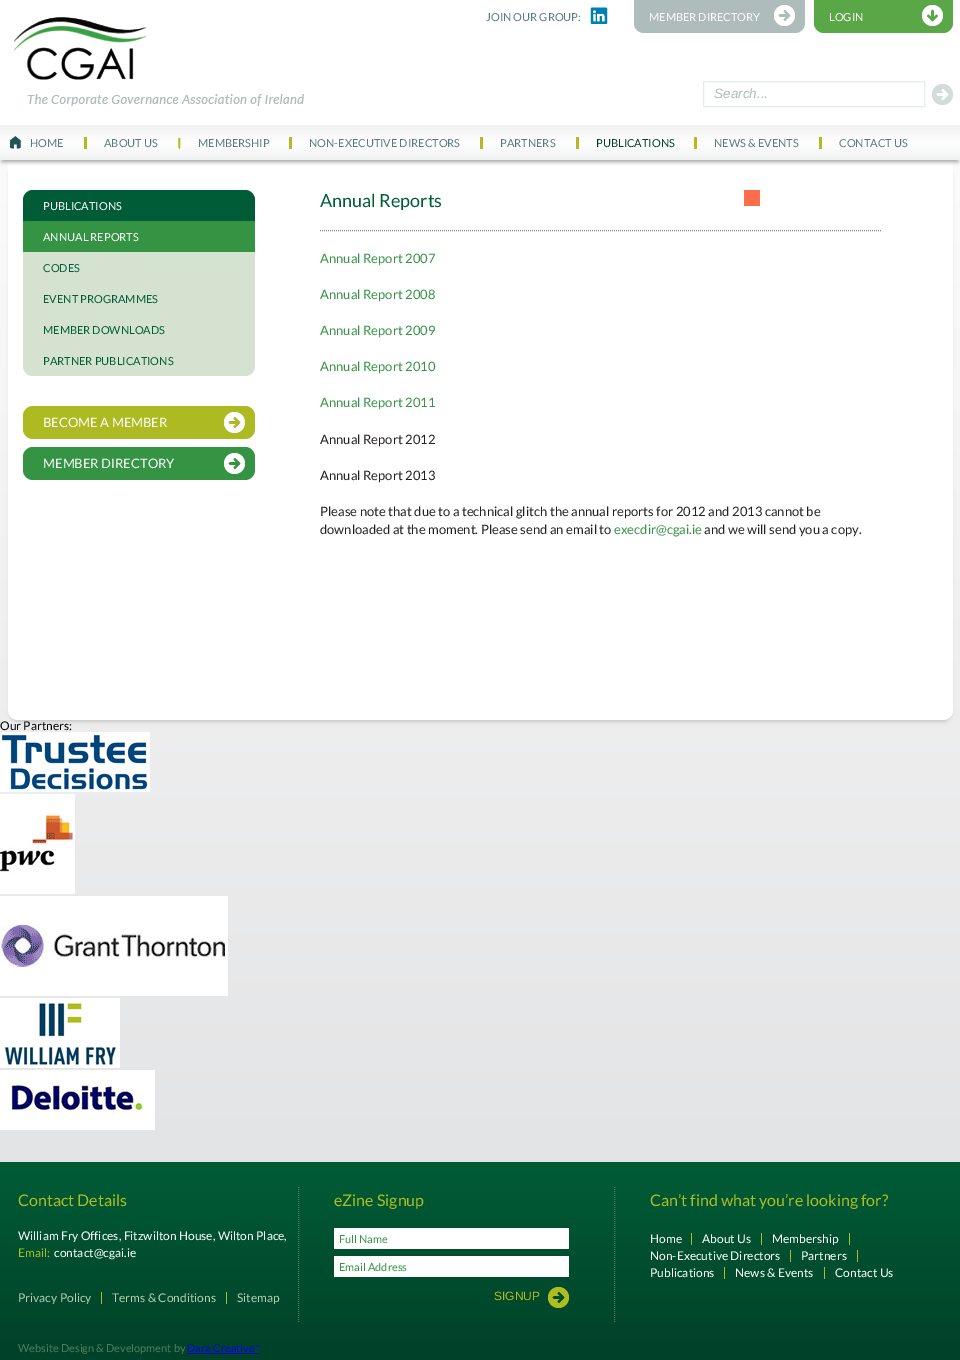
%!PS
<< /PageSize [960 1360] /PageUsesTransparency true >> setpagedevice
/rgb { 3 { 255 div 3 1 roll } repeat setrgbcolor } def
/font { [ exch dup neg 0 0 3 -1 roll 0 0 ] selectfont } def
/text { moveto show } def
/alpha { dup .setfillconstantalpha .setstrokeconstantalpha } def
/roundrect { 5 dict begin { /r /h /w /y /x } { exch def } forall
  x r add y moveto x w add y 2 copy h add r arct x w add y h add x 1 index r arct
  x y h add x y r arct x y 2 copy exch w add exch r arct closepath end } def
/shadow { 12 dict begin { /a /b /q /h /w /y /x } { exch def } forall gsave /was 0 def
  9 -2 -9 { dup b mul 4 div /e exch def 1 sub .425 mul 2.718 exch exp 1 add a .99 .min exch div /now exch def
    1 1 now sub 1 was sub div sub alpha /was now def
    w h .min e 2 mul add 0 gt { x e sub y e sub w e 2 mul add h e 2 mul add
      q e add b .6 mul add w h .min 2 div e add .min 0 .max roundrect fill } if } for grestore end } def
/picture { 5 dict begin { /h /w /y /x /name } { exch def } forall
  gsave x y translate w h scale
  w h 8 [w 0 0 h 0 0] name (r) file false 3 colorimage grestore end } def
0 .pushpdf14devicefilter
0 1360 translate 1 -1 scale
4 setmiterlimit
255 255 255 rgb
0 0 960 1360 rectfill
(img_01.rgb) 14 17 291 89 picture
(img_02.rgb) 590 7 18 17 picture
174 188 188 rgb
634 0 moveto 171 0 rlineto 0 23 rlineto 0 5.5 -4.5 10 -10 10 rcurveto -151 0 rlineto -5.5 0 -10 -4.5 -10 -10 rcurveto closepath fill
(img_03.rgb) 774 5 21 21 picture
89 167 70 rgb
814 0 moveto 139 0 rlineto 0 23 rlineto 0 5.5 -4.5 10 -10 10 rcurveto -119 0 rlineto -5.5 0 -10 -4.5 -10 -10 rcurveto closepath fill
(img_04.rgb) 922 5 21 21 picture
229 234 234 rgb
703.5 81.5 221 25 rectstroke
(img_05.rgb) 932 84 21 21 picture
gsave 0 160 moveto 960 0 rlineto 0 1002 rlineto -960 0 rlineto closepath clip newpath
<< /ShadingType 2 /ColorSpace /DeviceRGB /Coords [0 160 0 1162] /Extend [true true] /Function << /FunctionType 2 /Domain [0 1] /C0 [0.984 0.984 0.988] /C1 [0.89 0.894 0.898] /N 1 >> >> shfill grestore
199 198 198 rgb
10 166 941 556 8 2 1 shadow
255 255 255 rgb
8 160 moveto 945 0 rlineto 0 550 rlineto 0 5.5 -4.5 10 -10 10 rcurveto -925 0 rlineto -5.5 0 -10 -4.5 -10 -10 rcurveto closepath fill
162 162 162 rgb
2 131 956 31 0 2 1 shadow
gsave 0 125 moveto 960 0 rlineto 0 35 rlineto -960 0 rlineto closepath clip newpath
<< /ShadingType 2 /ColorSpace /DeviceRGB /Coords [0 125 0 160] /Extend [true true] /Function << /FunctionType 3 /Domain [0 1] /Functions [<< /FunctionType 2 /Domain [0 1] /C0 [0.945 0.945 0.949] /C1 [1 1 1] /N 1 >> << /FunctionType 2 /Domain [0 1] /C0 [1 1 1] /C1 [0.941 0.945 0.945] /N 1 >>] /Bounds [0.5] /Encode [0 1 0 1] >> >> shfill grestore
(img_06.rgb) 10 136 11 13 picture
175 188 34 rgb
84 137 3 12 rectfill
(img_07.rgb) 178 137 4 12 picture
289 137 3 12 rectfill
480 137 3 12 rectfill
576 137 3 12 rectfill
694 137 3 12 rectfill
819 137 3 12 rectfill
0 92 54 rgb
33 190 moveto 212 0 rlineto 5.5 0 10 4.5 10 10 rcurveto 0 21 rlineto -232 0 rlineto 0 -21 rlineto 0 -5.5 4.5 -10 10 -10 rcurveto closepath fill
53 147 68 rgb
23 221 232 31 rectfill
212 226 207 rgb
23 252 232 93 rectfill
23 345 moveto 232 0 rlineto 0 21 rlineto 0 5.5 -4.5 10 -10 10 rcurveto -212 0 rlineto -5.5 0 -10 -4.5 -10 -10 rcurveto closepath fill
173 186 34 rgb
23 406 232 33 10 roundrect fill
(img_08.rgb) 224 412 21 21 picture
53 147 68 rgb
23 447 232 33 10 roundrect fill
(img_09.rgb) 224 453 21 21 picture
136 136 136 rgb
[1 1] 0 setdash
320 230.5 moveto 562 0 rlineto stroke
252 109 76 rgb
744 190 16 16 rectfill
(img_10.rgb) 0 732 150 60 picture
(img_11.rgb) 0 794 75 100 picture
(img_12.rgb) 0 896 228 100 picture
(img_13.rgb) 0 998 120 70 picture
(img_14.rgb) 0 1070 155 60 picture
gsave 0 1162 moveto 960 0 rlineto 0 198 rlineto -960 0 rlineto closepath clip newpath
<< /ShadingType 2 /ColorSpace /DeviceRGB /Coords [0 1162 0 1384] /Extend [true true] /Function << /FunctionType 2 /Domain [0 1] /C0 [0 0.361 0.212] /C1 [0 0.243 0.153] /N 1 >> >> shfill grestore
67 128 94 rgb
298.5 1187 moveto 0 135 rlineto stroke
176 188 34 rgb
101 1292 1 12 rectfill
226 1292 1 12 rectfill
67 128 94 rgb
614.5 1187 moveto 0 135 rlineto stroke
255 255 255 rgb
334 1228 235 21 rectfill
334 1256 235 21 rectfill
(img_15.rgb) 548 1287 21 21 picture
176 188 34 rgb
691 1233 1 12 rectfill
761 1233 1 12 rectfill
849 1233 1 12 rectfill
790 1250 1 12 rectfill
857 1250 1 12 rectfill
724 1267 1 12 rectfill
824 1267 1 12 rectfill
0 0 238 rgb
187 1353 72 1 rectfill
/Lato-Regular 11 font
88 122 123 rgb
(JOIN OUR GROUP:) 486 21 text
255 255 255 rgb
(MEMBER DIRECTORY) 649 21 text
(LOGIN) 829 21 text
/LiberationSans-Italic 13.5 font
174 187 186 rgb
(Search...) 714 98 text
/Lato-Regular 11 font
88 122 123 rgb
(HOME) 30 147 text
(ABOUT US) 104 147 text
(MEMBERSHIP) 198 147 text
(NON-EXECUTIVE DIRECTORS) 309 147 text
(PARTNERS) 500 147 text
0 64 40 rgb
(PUBLICATIONS) 596 147 text
88 122 123 rgb
(NEWS & EVENTS) 714 147 text
(CONTACT US) 839 147 text
255 255 255 rgb
(PUBLICATIONS) 43 210 text
(ANNUAL REPORTS) 43 241 text
0 92 53 rgb
(CODES) 43 272 text
(EVENT PROGRAMMES) 43 303 text
(MEMBER DOWNLOADS) 43 334 text
(PARTNER PUBLICATIONS) 43 365 text
/Lato-Regular 13 font
255 255 255 rgb
(BECOME A MEMBER) 43 427 text
(MEMBER DIRECTORY) 43 468 text
/Lato-Regular 18 font
0 92 53 rgb
(Annual Reports) 320 207 text
/Lato-Regular 13 font
52 147 68 rgb
(Annual Report 2007) 320 263 text
(Annual Report 2008) 320 299 text
(Annual Report 2009) 320 335 text
(Annual Report 2010) 320 371 text
(Annual Report 2011) 320 407 text
35 31 32 rgb
(Annual Report 2012) 320 444 text
(Annual Report 2013) 320 480 text
(Please note that due to a technical glitch the annual reports for 2012 and 2013 cannot be) 320 516 text
(downloaded at the moment. Please send an email to) 320 534 text
52 147 68 rgb
(execdir@cgai.ie) 614 534 text
35 31 32 rgb
(and we will send you a copy.) 704 534 text
/Lato-Regular 12 font
0 0 0 rgb
(Our Partners:) 0 730 text
/Lato-Regular 16 font
175 188 33 rgb
(Contact Details) 18 1206 text
/Lato-Regular 12 font
255 255 255 rgb
(William Fry Offices, Fitzwilton House, Wilton Place,) 18 1240 text
175 188 33 rgb
(Email:) 18 1257 text
255 255 255 rgb
(contact@cgai.ie) 54 1257 text
182 204 173 rgb
(Privacy Policy) 18 1302 text
(Terms & Conditions) 112 1302 text
(Sitemap) 237 1302 text
/Lato-Regular 16 font
175 188 33 rgb
(eZine Signup) 334 1206 text
/Lato-Regular 11 font
52 147 68 rgb
(Full Name) 339 1243 text
(Email Address) 339 1271 text
/LiberationSans-Regular 12 font
175 188 33 rgb
(SIGNUP) 494 1300 text
/Lato-Regular 16 font
(Can’t find what you’re looking for?) 650 1206 text
/Lato-Regular 12 font
255 255 255 rgb
(Home) 650 1243 text
(About Us) 702 1243 text
(Membership) 772 1243 text
(Non-Executive Directors) 650 1260 text
(Partners) 801 1260 text
(Publications) 650 1277 text
(News & Events) 735 1277 text
(Contact Us) 835 1277 text
/Lato-Regular 11 font
80 124 93 rgb
(Website Design & Development by) 18 1352 text
0 0 238 rgb
(Dara Creative*) 187 1352 text
.poppdf14devicefilter showpage
